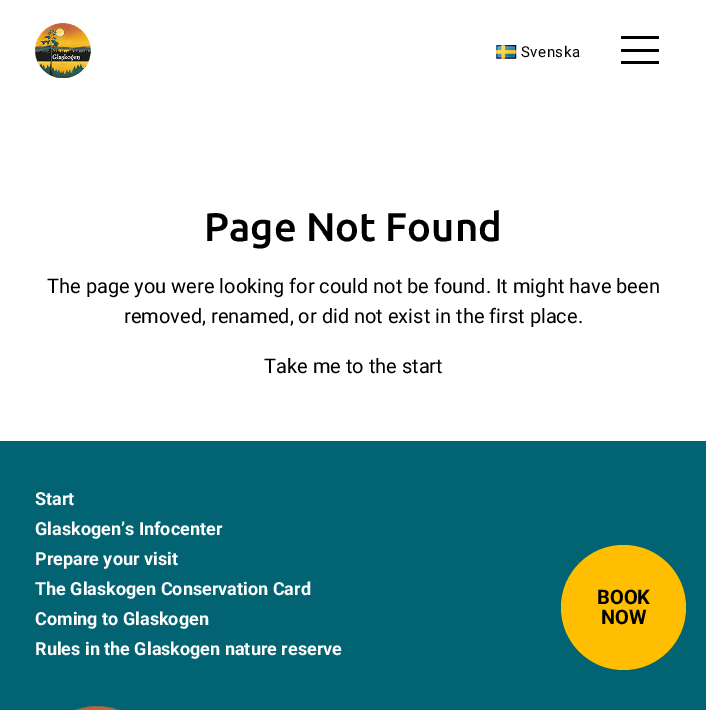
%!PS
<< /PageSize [706 710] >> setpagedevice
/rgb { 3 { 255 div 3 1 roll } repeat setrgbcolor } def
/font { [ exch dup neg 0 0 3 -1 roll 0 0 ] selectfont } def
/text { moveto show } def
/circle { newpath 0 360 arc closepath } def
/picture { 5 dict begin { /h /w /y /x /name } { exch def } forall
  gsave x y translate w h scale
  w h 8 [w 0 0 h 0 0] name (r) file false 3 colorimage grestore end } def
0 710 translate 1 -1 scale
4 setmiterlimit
255 255 255 rgb
0 0 706 710 rectfill
(img_01.rgb) 35 23 56 55 picture
(img_02.rgb) 496 45 21 14 picture
0 0 0 rgb
621 36 38 3 rectfill
621 49 38 3 rectfill
621 61 38 3 rectfill
2 99 114 rgb
0 441 706 269 rectfill
(img_03.rgb) 74 706 46 4 picture
255 191 0 rgb
623.5 607.5 62.5 circle fill
/Roboto-Regular 15 font
0 0 0 rgb
521 57 moveto 0.5 0 (Svenska) ashow
/Ubuntu-Medium 40 font
(Page Not Found) 204 241 text
/Roboto-Regular 20 font
(The page you were looking for could not be found. It might have been) 47 293 text
(removed, renamed, or did not exist in the first place.) 124 323 text
(Take me to the start) 264 373 text
/Roboto-Bold 18 font
255 255 255 rgb
(Start) 35 505 text
(Glaskogen’s Infocenter) 35 535 text
(Prepare your visit) 35 565 text
(The Glaskogen Conservation Card) 35 595 text
(Coming to Glaskogen) 35 625 text
(Rules in the Glaskogen nature reserve) 35 655 text
/Roboto-Bold 20 font
0 0 0 rgb
(BOOK) 597 604 text
(NOW) 601 624 text
showpage
